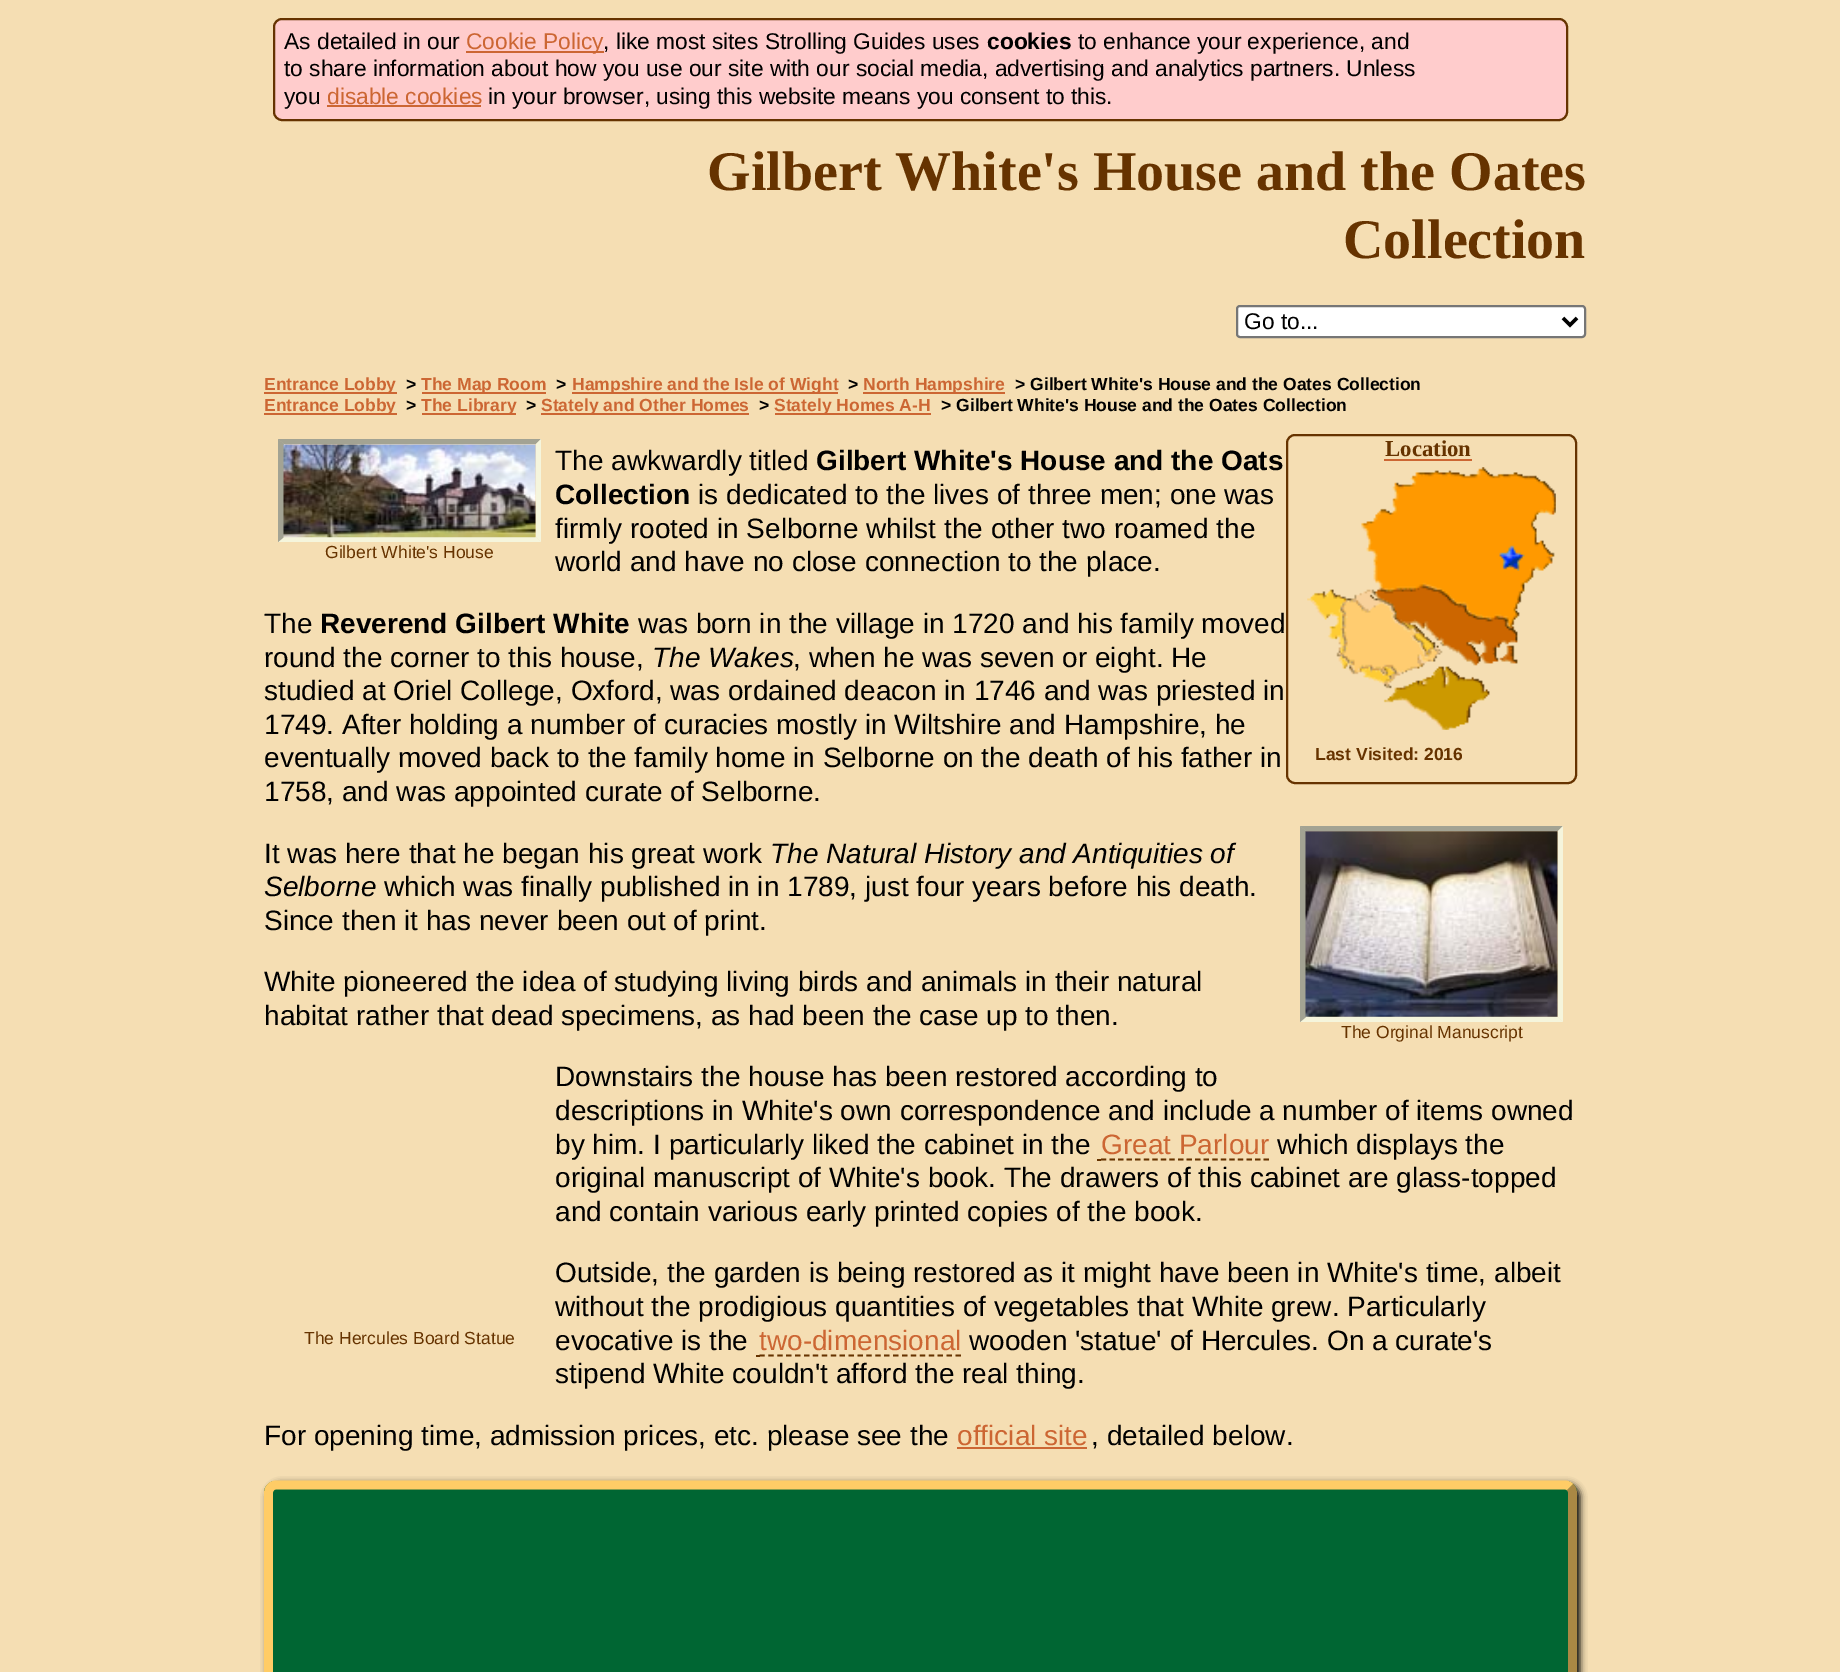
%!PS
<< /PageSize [1840 1672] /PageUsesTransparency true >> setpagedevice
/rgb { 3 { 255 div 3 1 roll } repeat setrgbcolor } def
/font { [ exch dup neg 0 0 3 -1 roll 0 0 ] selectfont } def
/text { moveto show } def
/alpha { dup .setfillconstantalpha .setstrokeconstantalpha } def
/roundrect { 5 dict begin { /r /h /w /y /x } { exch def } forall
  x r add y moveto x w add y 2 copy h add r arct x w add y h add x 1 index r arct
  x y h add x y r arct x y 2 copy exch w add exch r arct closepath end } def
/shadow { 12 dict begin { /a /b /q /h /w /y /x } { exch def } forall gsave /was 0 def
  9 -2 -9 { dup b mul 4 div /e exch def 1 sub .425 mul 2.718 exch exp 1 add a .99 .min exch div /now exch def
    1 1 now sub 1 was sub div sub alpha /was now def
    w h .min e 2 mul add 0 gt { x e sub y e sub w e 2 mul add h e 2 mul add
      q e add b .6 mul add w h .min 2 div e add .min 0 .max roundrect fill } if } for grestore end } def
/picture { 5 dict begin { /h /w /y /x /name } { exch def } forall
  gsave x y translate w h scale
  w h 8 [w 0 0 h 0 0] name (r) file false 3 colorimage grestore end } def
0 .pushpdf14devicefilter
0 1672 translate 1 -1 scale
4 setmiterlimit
245 222 179 rgb
0 0 1840 1672 rectfill
255 204 204 rgb
274 19 1293 101 8 roundrect gsave fill grestore
102 51 0 rgb
2 setlinewidth
stroke
204 102 51 rgb
466 51 138 2 rectfill
327 105 154 2 rectfill
255 255 255 rgb
1237 306 348 31 3 roundrect gsave fill grestore
118 118 118 rgb
stroke
0 0 0 rgb
3.5 setlinewidth
1563 318 moveto 7 7 rlineto 7 -7 rlineto stroke
204 102 51 rgb
264 392 133 2 rectfill
422 392 124 2 rectfill
572 392 266 2 rectfill
863 392 142 2 rectfill
264 413 133 2 rectfill
422 413 94 2 rectfill
541 413 208 2 rectfill
775 413 156 2 rectfill
163 163 147 rgb
278 439 moveto 263 0 rlineto -5 5 rlineto -252 0 rlineto closepath fill
245 245 220 rgb
541 439 moveto 0 103 rlineto -5 -5 rlineto 0 -93 rlineto closepath fill
541 542 moveto -263 0 rlineto 6 -5 rlineto 252 0 rlineto closepath fill
163 163 147 rgb
278 542 moveto 0 -103 rlineto 6 5 rlineto 0 93 rlineto closepath fill
(img_01.rgb) 283 444 253 94 picture
102 51 0 rgb
2 setlinewidth
1287 435 289 348 8 roundrect stroke
204 102 51 rgb
1384 459 88 2 rectfill
(img_02.rgb) 1307 467 249 263 picture
163 163 147 rgb
1300 826 moveto 263 0 rlineto -5 5 rlineto -252 0 rlineto closepath fill
245 245 220 rgb
1563 826 moveto 0 196 rlineto -5 -5 rlineto 0 -186 rlineto closepath fill
1563 1022 moveto -263 0 rlineto 6 -5 rlineto 252 0 rlineto closepath fill
163 163 147 rgb
1300 1022 moveto 0 -196 rlineto 6 5 rlineto 0 186 rlineto closepath fill
(img_03.rgb) 1305 831 253 186 picture
102 51 0 rgb
1097 1159 4 2 rectfill
1.8 setlinewidth
[5.25 3.31] 0 setdash
1101 1159.5 moveto 168 0 rlineto stroke
756 1355 4 2 rectfill
[5.25 3.66] 0 setdash
759.5 1355.5 moveto 201.5 0 rlineto stroke
204 102 51 rgb
957 1447 130 2 rectfill
0 0 0 rgb
268 1484 1312 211 12 3.5 1 shadow
0 102 51 rgb
264 1481 1313 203 12 roundrect fill
170 136 68 rgb
8.8 setlinewidth
[] 0 setdash
1570 1487 moveto 1.5 1.5 2.5 3.5 2.5 6 rcurveto 0 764.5 rlineto 0 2 -1 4 -2.5 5.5 rcurveto -1.5 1.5 -3.5 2.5 -5.5 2.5 rcurveto -1288 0 rlineto -2 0 -4 -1 -5.5 -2.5 rcurveto stroke
255 204 102 rgb
271 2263 moveto -1.5 -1.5 -2.5 -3.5 -2.5 -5.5 rcurveto 0 -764.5 rlineto 0 -2.5 1 -4.5 2.5 -6 rcurveto 1.5 -1.5 3.5 -2 5.5 -2 rcurveto 1288 0 rlineto 2 0 4 0.5 5.5 2 rcurveto stroke
/LiberationSans-Regular 22.75 font
0 0 0 rgb
(As detailed in our) 284 49 text
204 102 51 rgb
(Cookie Policy) 466 49 text
0 0 0 rgb
(, like most sites Strolling Guides uses) 603 49 text
/LiberationSans-Bold 22.75 font
(cookies) 987 49 text
/LiberationSans-Regular 22.75 font
(to enhance your experience, and) 1078 49 text
(to share information about how you use our site with our social media, advertising and analytics partners. Unless) 284 76 text
(you) 284 104 text
204 102 51 rgb
(disable cookies) 327 104 text
0 0 0 rgb
(in your browser, using this website means you consent to this.) 488 104 text
/LiberationSerif-Bold 56 font
102 51 0 rgb
(Gilbert White's House and the Oates) 707 190 text
(Collection) 1343 258 text
/LiberationSans-Regular 22.75 font
0 0 0 rgb
(Go to...) 1244 329 text
/LiberationSans-Bold 17.5 font
204 102 51 rgb
(Entrance Lobby) 264 390 text
0 0 0 rgb
(>) 406 390 text
204 102 51 rgb
(The Map Room) 421 390 text
0 0 0 rgb
(>) 556 390 text
204 102 51 rgb
(Hampshire and the Isle of Wight) 572 390 text
0 0 0 rgb
(>) 848 390 text
204 102 51 rgb
(North Hampshire) 863 390 text
0 0 0 rgb
(> Gilbert White's House and the Oates Collection) 1015 390 text
204 102 51 rgb
(Entrance Lobby) 264 411 text
0 0 0 rgb
(>) 406 411 text
204 102 51 rgb
(The Library) 421 411 text
0 0 0 rgb
(>) 526 411 text
204 102 51 rgb
(Stately and Other Homes) 541 411 text
0 0 0 rgb
(>) 759 411 text
204 102 51 rgb
(Stately Homes A-H) 774 411 text
0 0 0 rgb
(> Gilbert White's House and the Oates Collection) 941 411 text
/LiberationSans-Regular 17.5 font
102 51 0 rgb
(Gilbert White's House) 325 558 text
/LiberationSans-Regular 28 font
0 0 0 rgb
(The awkwardly titled) 555 470 text
/LiberationSans-Bold 28 font
(Gilbert White's House and the Oats) 816 470 text
(Collection) 555 504 text
/LiberationSans-Regular 28 font
(is dedicated to the lives of three men; one was) 698 504 text
(firmly rooted in Selborne whilst the other two roamed the) 555 538 text
(world and have no close connection to the place.) 555 571 text
/LiberationSerif-Bold 22.75 font
102 51 0 rgb
(Location) 1385 456 text
/LiberationSans-Bold 17.5 font
(Last Visited: 2016) 1315 760 text
/LiberationSans-Regular 28 font
0 0 0 rgb
(The) 264 633 text
/LiberationSans-Bold 28 font
(Reverend Gilbert White) 320 633 text
/LiberationSans-Regular 28 font
(was born in the village in 1720 and his family moved) 638 633 text
(round the corner to this house,) 264 667 text
/LiberationSans-Italic 28 font
(The Wakes) 652 667 text
/LiberationSans-Regular 28 font
(, when he was seven or eight. He) 793 667 text
(studied at Oriel College, Oxford, was ordained deacon in 1746 and was priested in) 264 700 text
(1749. After holding a number of curacies mostly in Wiltshire and Hampshire, he) 264 734 text
(eventually moved back to the family home in Selborne on the death of his father in) 264 767 text
(1758, and was appointed curate of Selborne.) 264 801 text
(It was here that he began his great work) 264 863 text
/LiberationSans-Italic 28 font
(The Natural History and Antiquities of) 770 863 text
(Selborne) 264 896 text
/LiberationSans-Regular 28 font
(which was finally published in in 1789, just four years before his death.) 384 896 text
(Since then it has never been out of print.) 264 930 text
(White pioneered the idea of studying living birds and animals in their natural) 264 991 text
(habitat rather that dead specimens, as had been the case up to then.) 264 1025 text
/LiberationSans-Regular 17.5 font
102 51 0 rgb
(The Orginal Manuscript) 1341 1038 text
/LiberationSans-Regular 28 font
0 0 0 rgb
(Downstairs the house has been restored according to) 555 1086 text
(descriptions in White's own correspondence and include a number of items owned) 555 1120 text
(by him. I particularly liked the cabinet in the) 555 1154 text
204 102 51 rgb
(Great Parlour) 1101 1154 text
0 0 0 rgb
(which displays the) 1277 1154 text
(original manuscript of White's book. The drawers of this cabinet are glass-topped) 555 1187 text
(and contain various early printed copies of the book.) 555 1221 text
/LiberationSans-Regular 17.5 font
102 51 0 rgb
(The Hercules Board Statue) 304 1344 text
/LiberationSans-Regular 28 font
0 0 0 rgb
(Outside, the garden is being restored as it might have been in White's time, albeit) 555 1282 text
(without the prodigious quantities of vegetables that White grew. Particularly) 555 1316 text
(evocative is the) 555 1350 text
204 102 51 rgb
(two-dimensional) 759 1350 text
0 0 0 rgb
(wooden 'statue' of Hercules. On a curate's) 969 1350 text
(stipend White couldn't afford the real thing.) 555 1383 text
(For opening time, admission prices, etc. please see the) 264 1445 text
204 102 51 rgb
(official site) 957 1445 text
0 0 0 rgb
(, detailed below.) 1091 1445 text
.poppdf14devicefilter showpage
